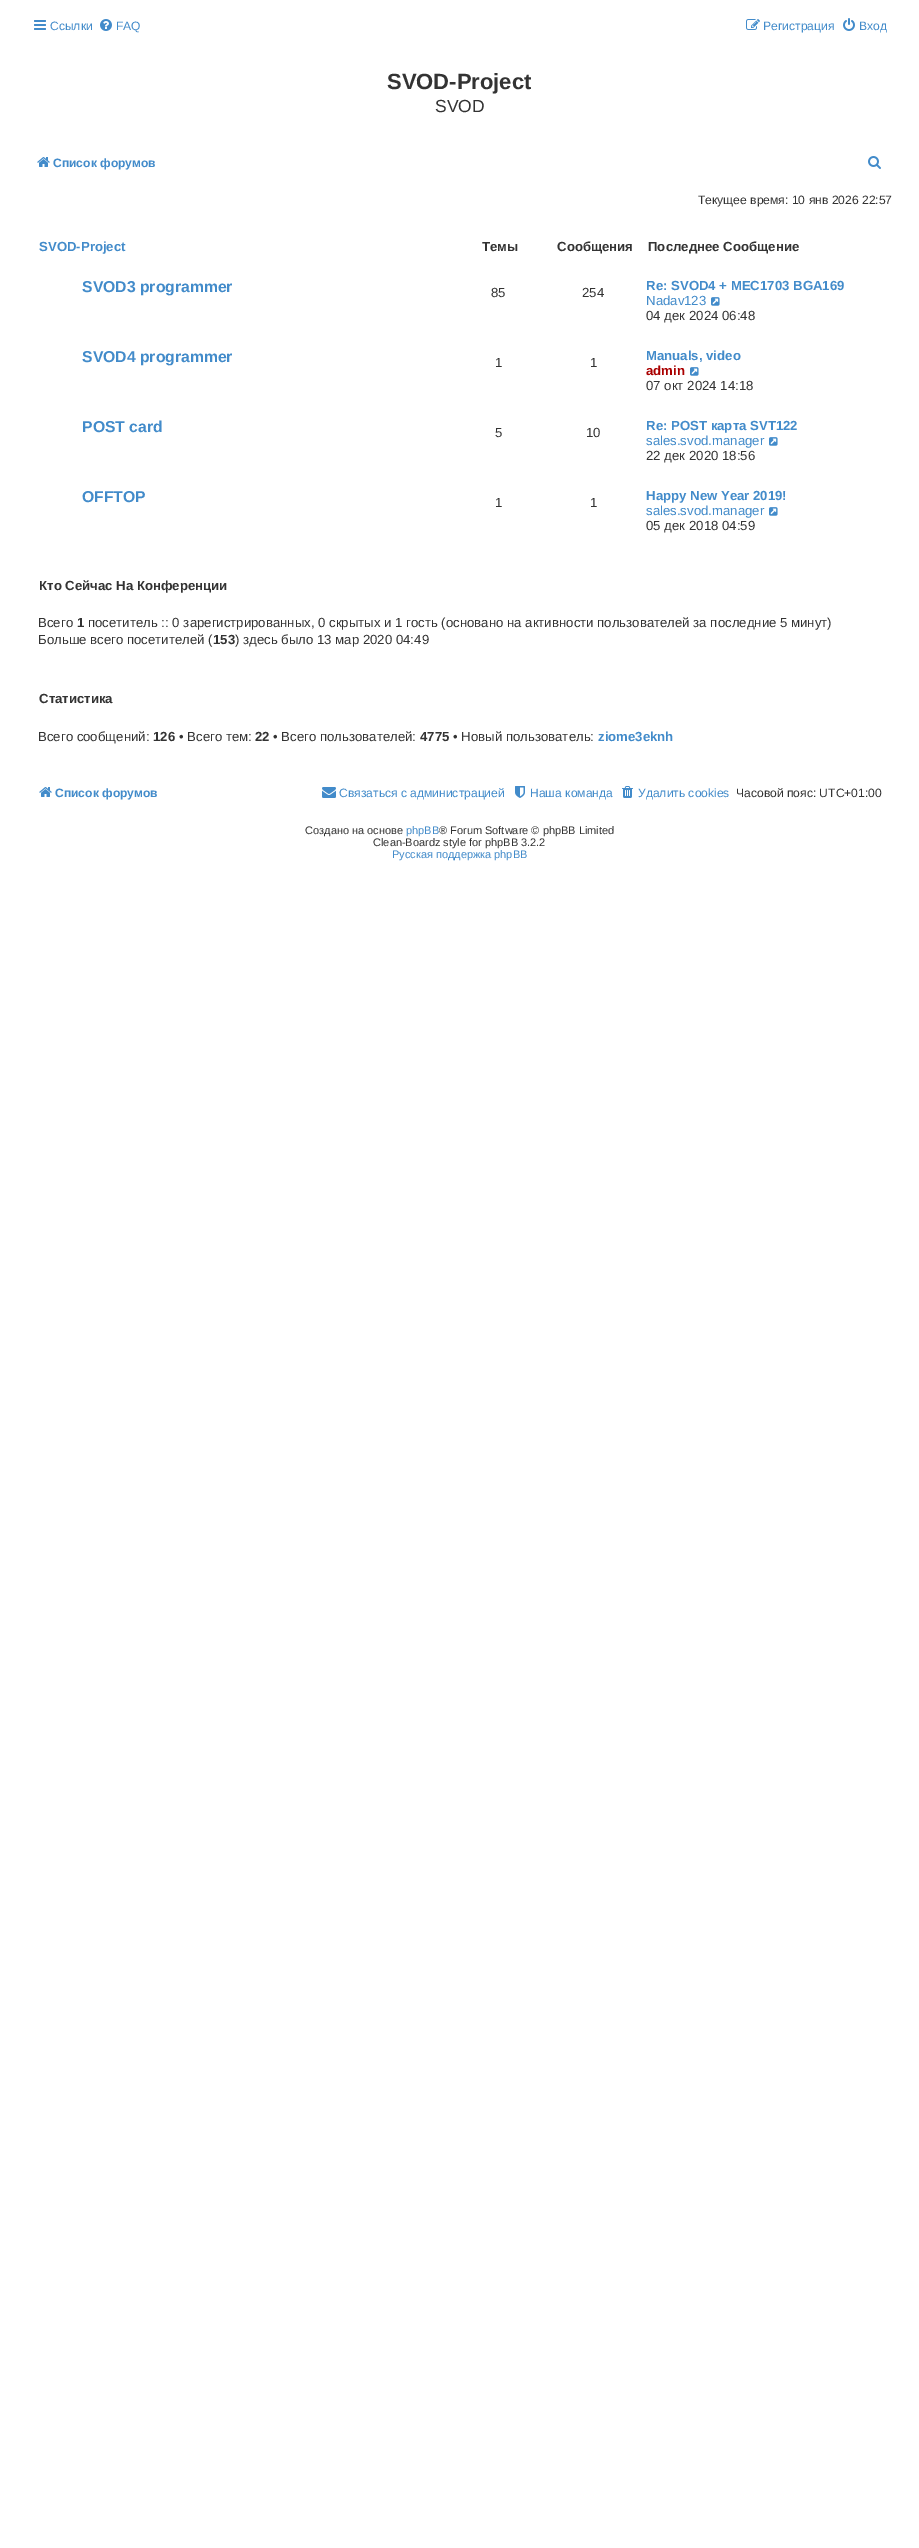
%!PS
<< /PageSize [919 2548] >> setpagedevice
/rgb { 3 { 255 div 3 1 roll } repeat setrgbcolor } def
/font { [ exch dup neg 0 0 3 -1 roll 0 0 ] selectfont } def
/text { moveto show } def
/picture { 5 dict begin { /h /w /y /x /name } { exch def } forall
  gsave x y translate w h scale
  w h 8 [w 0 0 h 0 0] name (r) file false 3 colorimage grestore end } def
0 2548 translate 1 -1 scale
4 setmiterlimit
255 255 255 rgb
0 0 919 2548 rectfill
(img_01.rgb) 34 20 12 10 picture
(img_02.rgb) 100 19 12 12 picture
(img_03.rgb) 746 19 14 11 picture
(img_04.rgb) 843 18 12 13 picture
(img_05.rgb) 37 157 13 10 picture
(img_06.rgb) 868 156 13 13 picture
(img_07.rgb) 711 297 9 9 picture
(img_07.rgb) 690 367 9 9 picture
(img_07.rgb) 769 437 9 9 picture
(img_07.rgb) 769 507 9 9 picture
(img_05.rgb) 39 787 13 10 picture
(img_08.rgb) 322 787 14 11 picture
(img_09.rgb) 515 786 10 12 picture
(img_10.rgb) 622 786 11 12 picture
/LiberationSans-Regular 12.1 font
66 139 202 rgb
(Ссылки) 50 30 text
(FAQ) 116 30 text
(Регистрация) 763 30 text
(Вход) 859 30 text
/LiberationSans-Bold 22 font
51 51 51 rgb
(SVOD-Project) 387 89 text
/LiberationSans-Regular 17.5 font
(SVOD) 435 112 text
/LiberationSans-Bold 12.1 font
66 139 202 rgb
(Список форумов) 53 167 text
/LiberationSans-Regular 12.1 font
51 51 51 rgb
(Текущее время: 10 янв 2026 22:57) 698 204 text
/LiberationSans-Bold 13.2 font
66 139 202 rgb
(SVOD-Project) 39 251 text
51 51 51 rgb
(Темы) 482 251 text
(Сообщения) 557 251 text
(Последнее Сообщение) 648 251 text
/LiberationSans-Bold 15.75 font
66 139 202 rgb
(SVOD3 programmer) 82 292 text
/LiberationSans-Regular 13.2 font
51 51 51 rgb
(85) 491 297 text
(254) 582 297 text
/LiberationSans-Bold 13.2 font
66 139 202 rgb
(Re: SVOD4 + MEC1703 BGA169) 646 290 text
/LiberationSans-Regular 13.2 font
(Nadav123) 646 305 text
51 51 51 rgb
(04 дек 2024 06:48) 646 320 text
/LiberationSans-Bold 15.75 font
66 139 202 rgb
(SVOD4 programmer) 82 362 text
/LiberationSans-Regular 13.2 font
51 51 51 rgb
(1) 495 367 text
(1) 590 367 text
/LiberationSans-Bold 13.2 font
66 139 202 rgb
(Manuals, video) 646 360 text
170 0 0 rgb
(admin) 646 375 text
/LiberationSans-Regular 13.2 font
51 51 51 rgb
(07 окт 2024 14:18) 646 390 text
/LiberationSans-Bold 15.75 font
66 139 202 rgb
(POST card) 82 432 text
/LiberationSans-Regular 13.2 font
51 51 51 rgb
(5) 495 437 text
(10) 586 437 text
/LiberationSans-Bold 13.2 font
66 139 202 rgb
(Re: POST карта SVT122) 646 430 text
/LiberationSans-Regular 13.2 font
(sales.svod.manager) 646 445 text
51 51 51 rgb
(22 дек 2020 18:56) 646 460 text
/LiberationSans-Bold 15.75 font
66 139 202 rgb
(OFFTOP) 82 502 text
/LiberationSans-Regular 13.2 font
51 51 51 rgb
(1) 495 507 text
(1) 590 507 text
/LiberationSans-Bold 13.2 font
66 139 202 rgb
(Happy New Year 2019!) 646 500 text
/LiberationSans-Regular 13.2 font
(sales.svod.manager) 646 515 text
51 51 51 rgb
(05 дек 2018 04:59) 646 530 text
/LiberationSans-Bold 13.2 font
(Кто Сейчас На Конференции) 39 590 text
/LiberationSans-Regular 13.2 font
(Всего) 38 627 text
/LiberationSans-Bold 13.2 font
(1) 77 627 text
/LiberationSans-Regular 13.2 font
(посетитель :: 0 зарегистрированных, 0 скрытых и 1 гость \(основано на активности пользователей за последние 5 минут\)) 88 627 text
(Больше всего посетителей \() 38 644 text
/LiberationSans-Bold 13.2 font
(153) 213 644 text
/LiberationSans-Regular 13.2 font
(\) здесь было 13 мар 2020 04:49) 235 644 text
/LiberationSans-Bold 13.2 font
(Статистика) 39 703 text
/LiberationSans-Regular 13.2 font
(Всего сообщений:) 38 741 text
/LiberationSans-Bold 13.2 font
(126) 153 741 text
/LiberationSans-Regular 13.2 font
(• Всего тем:) 179 741 text
/LiberationSans-Bold 13.2 font
(22) 255 741 text
/LiberationSans-Regular 13.2 font
(• Всего пользователей:) 273 741 text
/LiberationSans-Bold 13.2 font
(4775) 420 741 text
/LiberationSans-Regular 13.2 font
(• Новый пользователь:) 453 741 text
/LiberationSans-Bold 13.2 font
66 139 202 rgb
(ziome3eknh) 598 741 text
/LiberationSans-Bold 12.1 font
(Список форумов) 55 797 text
/LiberationSans-Regular 12.1 font
(Связаться с администрацией) 339 797 text
(Наша команда) 530 797 text
(Удалить cookies) 638 797 text
51 51 51 rgb
(Часовой пояс: UTC+01:00) 736 797 text
/LiberationSans-Regular 11 font
(Создано на основе) 305 834 text
66 139 202 rgb
(phpBB) 406 834 text
51 51 51 rgb
(® Forum Software © phpBB Limited) 439 834 text
(Clean-Boardz style for phpBB 3.2.2) 373 846 text
66 139 202 rgb
(Русская поддержка phpBB) 392 858 text
showpage
